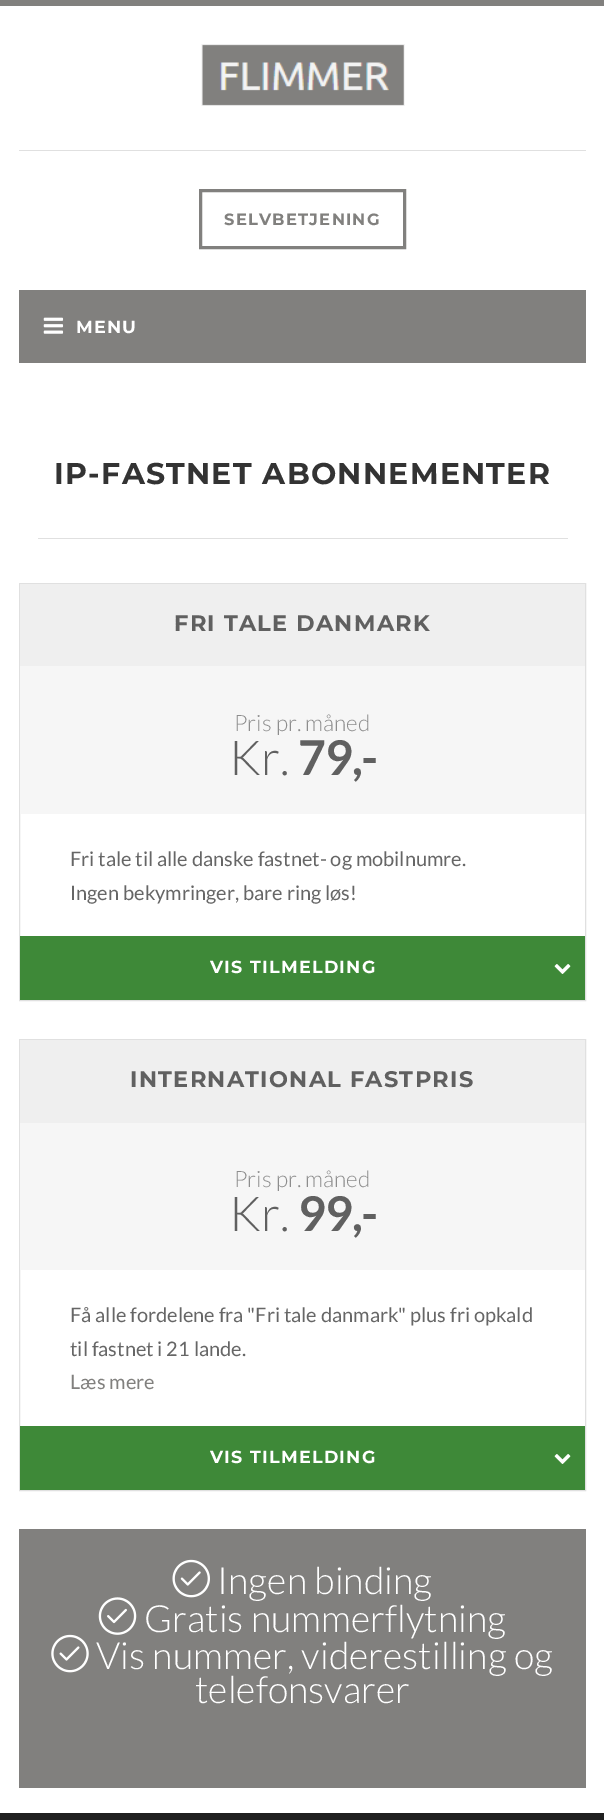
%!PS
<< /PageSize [604 1820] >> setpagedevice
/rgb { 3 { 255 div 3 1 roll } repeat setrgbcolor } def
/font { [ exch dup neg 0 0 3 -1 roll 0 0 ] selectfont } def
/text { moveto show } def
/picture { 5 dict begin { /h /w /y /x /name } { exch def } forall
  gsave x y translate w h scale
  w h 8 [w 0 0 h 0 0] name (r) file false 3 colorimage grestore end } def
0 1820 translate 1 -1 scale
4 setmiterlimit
129 128 126 rgb
0 0 604 1820 rectfill
255 255 255 rgb
0 6 604 1807 rectfill
224 224 224 rgb
19 150 567 1 rectfill
(img_01.rgb) 201 44 204 62 picture
129 128 126 rgb
3 setlinewidth
200.5 190.5 204 57 rectstroke
19 290 567 73 rectfill
(img_02.rgb) 43 317 21 17 picture
224 224 224 rgb
38 538 530 1 rectfill
1 setlinewidth
19.5 583.5 566 417 rectstroke
246 246 246 rgb
20 666 565 148 rectfill
239 239 239 rgb
20 584 565 82 rectfill
62 137 56 rgb
20 936 565 64 rectfill
(img_03.rgb) 554 964 17 10 picture
224 224 224 rgb
19.5 1039.5 566 451 rectstroke
246 246 246 rgb
20 1123 565 147 rectfill
239 239 239 rgb
20 1040 565 83 rectfill
62 137 56 rgb
20 1426 565 64 rectfill
(img_03.rgb) 554 1454 17 10 picture
129 128 126 rgb
19 1529 567 259 rectfill
(img_04.rgb) 172 1559 38 39 picture
(img_05.rgb) 98 1597 39 38 picture
(img_06.rgb) 51 1634 38 39 picture
32 32 32 rgb
0 1813 604 7 rectfill
/Montserrat-Bold 16.25 font
129 128 126 rgb
224 225 moveto 1.25 0 (SELVBETJENING) ashow
/Montserrat-Bold 17.5 font
255 255 255 rgb
76 333 moveto 1.25 0 (MENU) ashow
/Montserrat-Bold 30 font
51 51 51 rgb
54 484 moveto 1.25 0 (IP-FASTNET ABONNEMENTER) ashow
/Montserrat-Bold 22.5 font
96 96 96 rgb
174 631 moveto 1.25 0 (FRI TALE DANMARK) ashow
/Lato-Light 22.5 font
141 141 141 rgb
(Pris pr. måned) 234 731 text
/Lato-Light 48 font
96 96 96 rgb
(Kr.) 229 775 text
/Lato-Bold 48 font
298 775 moveto -1 0 (79,-) ashow
/Lato-Regular 20 font
102 102 102 rgb
(Fri tale til alle danske fastnet- og mobilnumre.) 70 866 text
(Ingen bekymringer, bare ring løs!) 70 900 text
/Montserrat-Bold 17.5 font
255 255 255 rgb
210 973 moveto 1.25 0 (VIS TILMELDING) ashow
/Montserrat-Bold 22.5 font
96 96 96 rgb
130 1087 moveto 1.25 0 (INTERNATIONAL FASTPRIS) ashow
/Lato-Light 22.5 font
141 141 141 rgb
(Pris pr. måned) 234 1187 text
/Lato-Light 48 font
96 96 96 rgb
(Kr.) 229 1231 text
/Lato-Bold 48 font
298 1231 moveto -1 0 (99,-) ashow
/Lato-Regular 20 font
102 102 102 rgb
(Få alle fordelene fra "Fri tale danmark" plus fri opkald) 70 1322 text
(til fastnet i 21 lande.) 70 1356 text
129 128 126 rgb
(Læs mere) 70 1389 text
/Montserrat-Bold 17.5 font
255 255 255 rgb
210 1463 moveto 1.25 0 (VIS TILMELDING) ashow
/Lato-Light 37.5 font
(Ingen binding) 217 1594 text
(Gratis nummerflytning) 144 1632 text
(Vis nummer, viderestilling og) 96 1669 text
(telefonsvarer) 195 1703 text
showpage
